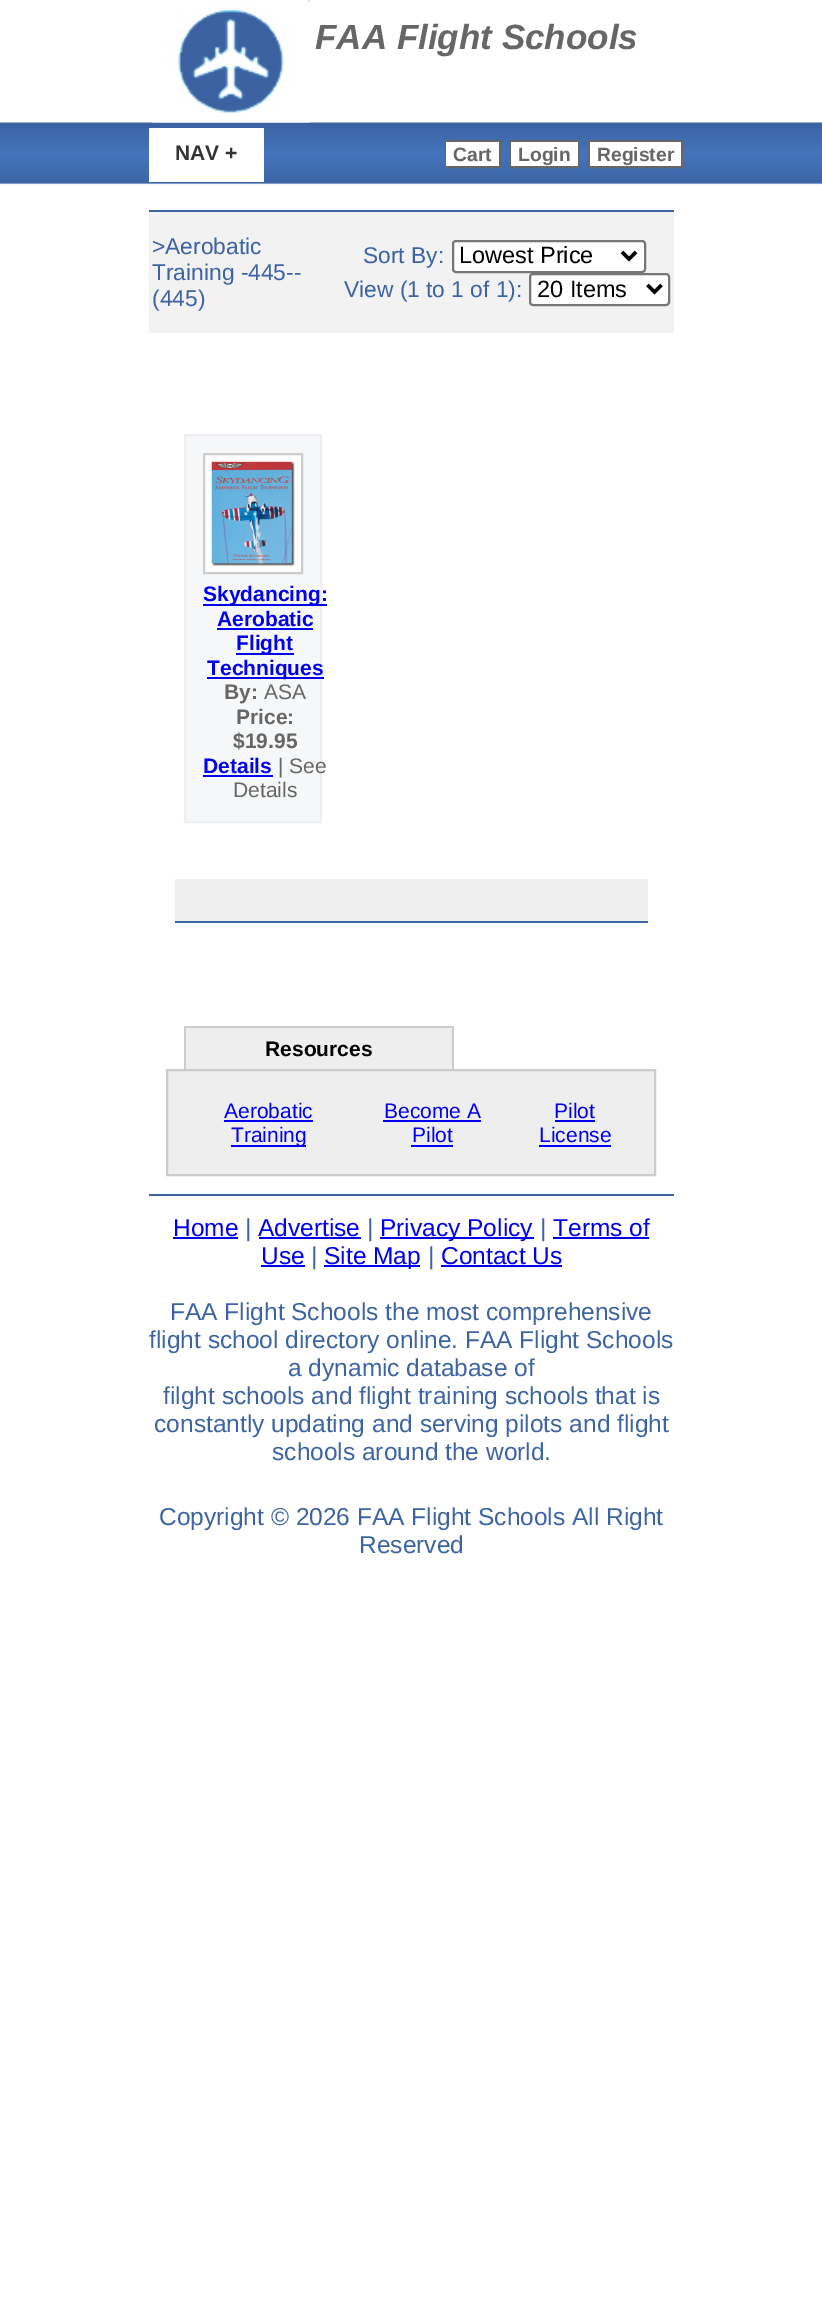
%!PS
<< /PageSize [822 2304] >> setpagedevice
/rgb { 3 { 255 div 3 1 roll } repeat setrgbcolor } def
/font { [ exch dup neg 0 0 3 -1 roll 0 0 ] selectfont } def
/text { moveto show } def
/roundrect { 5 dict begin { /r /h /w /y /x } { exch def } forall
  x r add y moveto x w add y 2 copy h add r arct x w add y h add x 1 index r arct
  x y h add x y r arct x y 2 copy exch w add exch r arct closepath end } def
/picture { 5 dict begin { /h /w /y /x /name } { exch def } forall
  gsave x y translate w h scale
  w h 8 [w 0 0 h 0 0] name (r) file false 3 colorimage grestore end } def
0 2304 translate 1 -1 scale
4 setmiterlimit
255 255 255 rgb
0 0 822 2304 rectfill
(img_01.rgb) 0 122 822 63 picture
149 128 115 54 rectfill
(img_02.rgb) 152 0 158 123 picture
102 102 102 rgb
2 setlinewidth
446 141 54 26 rectstroke
255 255 255 rgb
446 142 53 24 rectfill
102 102 102 rgb
510 141 68 26 rectstroke
255 255 255 rgb
511 142 67 24 rectfill
102 102 102 rgb
589 141 93 26 rectstroke
255 255 255 rgb
590 142 91 24 rectfill
242 242 242 rgb
149 212 525 121 rectfill
60 99 162 rgb
149 210 525 2 rectfill
255 255 255 rgb
453 241 192 31 3 roundrect gsave fill grestore
118 118 118 rgb
stroke
0 0 0 rgb
3.5 setlinewidth
622 252 moveto 7 7 rlineto 7 -7 rlineto stroke
255 255 255 rgb
530 274 139 31 3 roundrect gsave fill grestore
118 118 118 rgb
2 setlinewidth
stroke
0 0 0 rgb
3.5 setlinewidth
647.5 285 moveto 7 7 rlineto 7 -7 rlineto stroke
246 247 248 rgb
185 435 moveto 136 0 rlineto 0 387 rlineto -136 0 rlineto closepath gsave fill grestore
237 239 244 rgb
2 setlinewidth
stroke
255 255 255 rgb
204 454 moveto 98 0 rlineto 0 119 rlineto -98 0 rlineto closepath gsave fill grestore
204 204 204 rgb
stroke
(img_03.rgb) 210 461 85 106 picture
0 0 238 rgb
203 604 124 2 rectfill
217 628 96 2 rectfill
236 653 58 2 rectfill
207 677 117 2 rectfill
203 775 70 2 rectfill
239 239 239 rgb
175 879 473 42 rectfill
60 99 162 rgb
175 921 473 2 rectfill
238 238 238 rgb
186 1028 266 41 rectfill
204 204 204 rgb
184 1026 269 2 rectfill
452 1026 2 43 rectfill
184 1026 2 43 rectfill
238 238 238 rgb
167 1070 moveto 488 0 rlineto 0 105 rlineto -488 0 rlineto closepath gsave fill grestore
204 204 204 rgb
stroke
0 0 238 rgb
224 1120 89 2 rectfill
231 1145 75 2 rectfill
383 1120 98 2 rectfill
411 1145 42 2 rectfill
555 1120 40 2 rectfill
539 1145 72 2 rectfill
60 99 162 rgb
149 1194 525 2 rectfill
0 0 238 rgb
173 1237 65 2 rectfill
259 1237 102 2 rectfill
380 1237 154 2 rectfill
553 1237 96 2 rectfill
261 1265 44 2 rectfill
324 1265 96 2 rectfill
441 1265 121 2 rectfill
/LiberationSans-Bold 21 font
51 51 51 rgb
(NAV +) 175 160 text
/LiberationSans-BoldItalic 35 font
102 102 102 rgb
(FAA Flight Schools) 315 49 text
/LiberationSans-Bold 19.25 font
(Cart) 453 161 text
(Login) 518 161 text
(Register) 597 161 text
/LiberationSans-Regular 22.75 font
60 99 162 rgb
(>Aerobatic) 152 254 text
(Training -445--) 152 280 text
(\(445\)) 152 306 text
(Sort By:) 363 263 text
/LiberationSans-Regular 23.5 font
0 0 0 rgb
(Lowest Price) 459 263 text
/LiberationSans-Regular 22.75 font
60 99 162 rgb
(View \(1 to 1 of 1\):) 344 297 text
/LiberationSans-Regular 23.5 font
0 0 0 rgb
(20 Items) 537 297 text
/LiberationSans-Bold 21 font
0 0 238 rgb
(Skydancing:) 203 601 text
(Aerobatic) 217 626 text
(Flight) 236 650 text
(Techniques) 207 675 text
102 102 102 rgb
(By:) 224 699 text
/LiberationSans-Regular 21 font
(ASA) 264 699 text
/LiberationSans-Bold 21 font
(Price:) 236 724 text
($19.95) 233 748 text
0 0 238 rgb
(Details) 203 773 text
/LiberationSans-Regular 21 font
102 102 102 rgb
(| See) 278 773 text
(Details) 233 797 text
/LiberationSans-Bold 21 font
0 0 0 rgb
(Resources) 265 1056 text
/LiberationSans-Regular 21 font
0 0 238 rgb
(Aerobatic) 224 1118 text
(Training) 231 1142 text
(Become A) 384 1118 text
(Pilot) 412 1142 text
(Pilot) 554 1118 text
(License) 539 1142 text
/LiberationSans-Regular 24.5 font
(Home) 173 1236 text
60 99 162 rgb
(|) 245 1236 text
0 0 238 rgb
(Advertise) 258 1236 text
60 99 162 rgb
(|) 367 1236 text
0 0 238 rgb
(Privacy Policy) 380 1236 text
60 99 162 rgb
(|) 540 1236 text
0 0 238 rgb
(Terms of) 553 1236 text
(Use) 261 1264 text
60 99 162 rgb
(|) 311 1264 text
0 0 238 rgb
(Site Map) 324 1264 text
60 99 162 rgb
(|) 428 1264 text
0 0 238 rgb
(Contact Us) 441 1264 text
60 99 162 rgb
(FAA Flight Schools the most comprehensive) 170 1320 text
(flight school directory online. FAA Flight Schools) 149 1348 text
(a dynamic database of) 288 1376 text
(filght schools and flight training schools that is) 163 1404 text
(constantly updating and serving pilots and flight) 154 1432 text
(schools around the world.) 272 1460 text
(Copyright © 2026 FAA Flight Schools All Right) 159 1525 text
(Reserved) 359 1553 text
showpage
